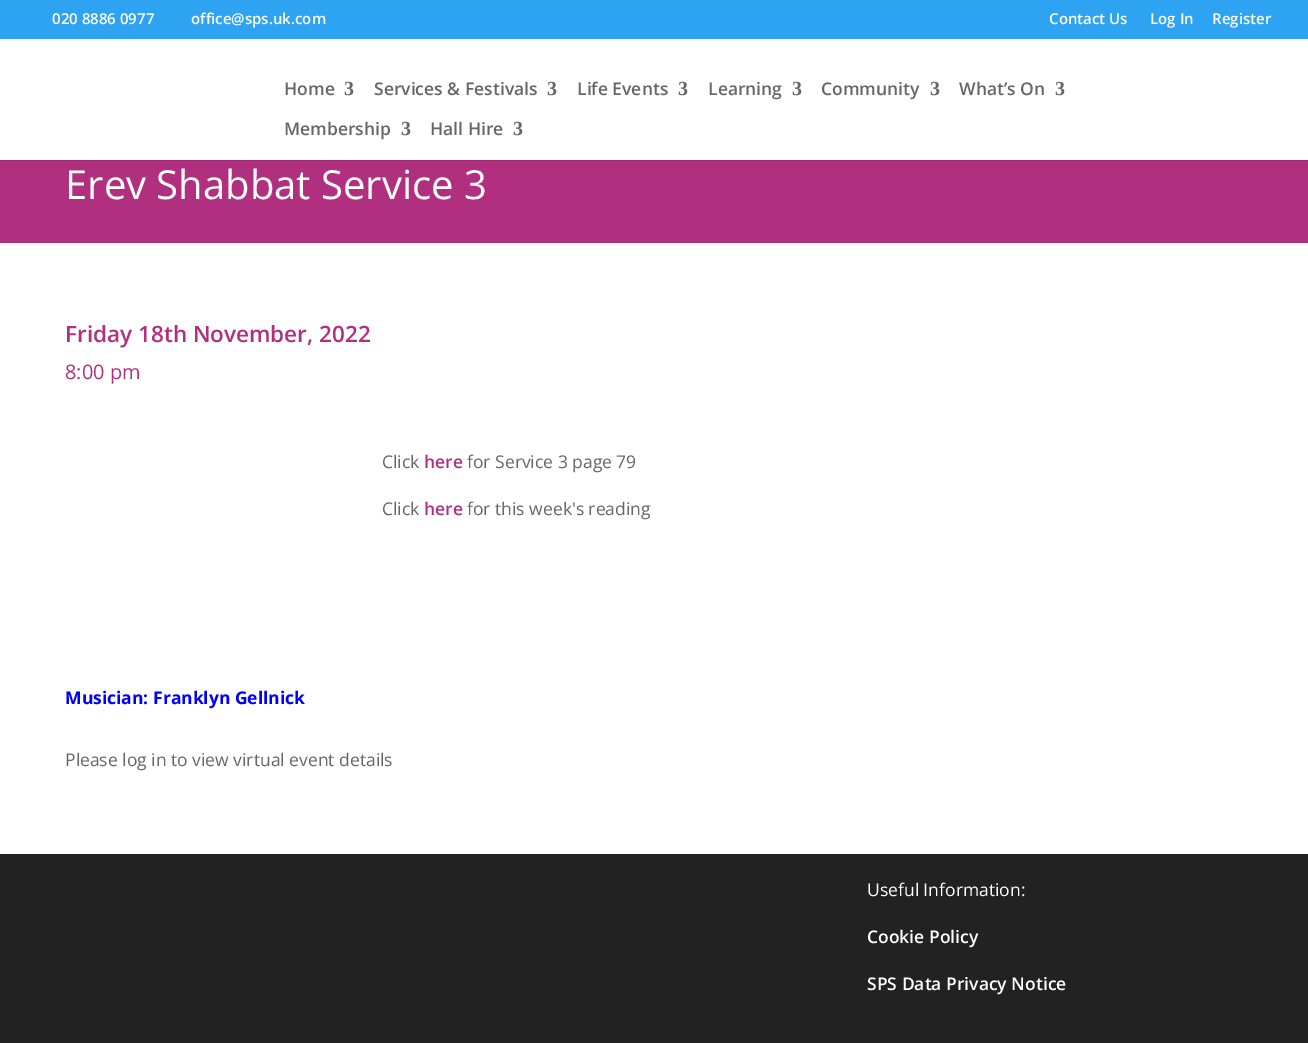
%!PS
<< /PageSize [1308 1043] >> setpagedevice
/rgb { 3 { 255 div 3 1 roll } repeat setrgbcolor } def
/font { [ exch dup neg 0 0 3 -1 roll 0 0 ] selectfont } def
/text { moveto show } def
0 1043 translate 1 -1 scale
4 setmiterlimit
255 255 255 rgb
0 0 1308 1043 rectfill
46 163 242 rgb
0 0 1308 39 rectfill
158 43 114 rgb
0 160 moveto 0 1 rlineto 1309 0 rlineto 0 -121 rlineto 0 120 rlineto closepath fill
176 48 127 rgb
0 161 1308 82 rectfill
34 34 34 rgb
0 854 1308 189 rectfill
/OpenSans-SemiBold 15 font
255 255 255 rgb
(020 8886 0977) 52 24 text
(office@sps.uk.com) 191 24 text
(Contact Us) 1049 24 text
(Log In) 1150 24 text
(Register) 1212 24 text
/OpenSans-SemiBold 17.5 font
102 102 102 rgb
(Home) 284 95 text
/LiberationSerif-Bold 20 font
(3) 344 95 text
/OpenSans-SemiBold 17.5 font
(Services & Festivals) 374 95 text
/LiberationSerif-Bold 20 font
(3) 547 95 text
/OpenSans-SemiBold 17.5 font
(Life Events) 577 95 text
/LiberationSerif-Bold 20 font
(3) 678 95 text
/OpenSans-SemiBold 17.5 font
(Learning) 708 95 text
/LiberationSerif-Bold 20 font
(3) 792 95 text
/OpenSans-SemiBold 17.5 font
(Community) 821 95 text
/LiberationSerif-Bold 20 font
(3) 930 95 text
/OpenSans-SemiBold 17.5 font
(What’s On) 959 95 text
/LiberationSerif-Bold 20 font
(3) 1055 95 text
/OpenSans-SemiBold 17.5 font
(Membership) 284 135 text
/LiberationSerif-Bold 20 font
(3) 401 135 text
/OpenSans-SemiBold 17.5 font
(Hall Hire) 430 135 text
/LiberationSerif-Bold 20 font
(3) 513 135 text
/OpenSans-Regular 40 font
255 255 255 rgb
(Erev Shabbat Service 3) 65 199 text
/OpenSans-SemiBold 22.5 font
176 48 127 rgb
(Friday 18th November, 2022) 65 342 text
/OpenSans-Regular 20 font
(8:00 pm) 65 379 text
/OpenSans-Regular 17.5 font
102 102 102 rgb
(Click) 382 468 text
/OpenSans-SemiBold 17.5 font
176 48 127 rgb
(here) 424 468 text
/OpenSans-Regular 17.5 font
102 102 102 rgb
(for Service 3 page 79) 467 468 text
(Click) 382 515 text
/OpenSans-SemiBold 17.5 font
176 48 127 rgb
(here) 424 515 text
/OpenSans-Regular 17.5 font
102 102 102 rgb
(for this week's reading) 467 515 text
/OpenSans-Bold 17.5 font
0 0 255 rgb
(Musician: Franklyn Gellnick) 65 704 text
/OpenSans-Regular 17.5 font
102 102 102 rgb
(Please log in to view virtual event details) 65 766 text
255 255 255 rgb
(Useful Information:) 867 896 text
/OpenSans-SemiBold 17.5 font
(Cookie Policy) 867 943 text
(SPS Data Privacy Notice) 867 990 text
showpage
